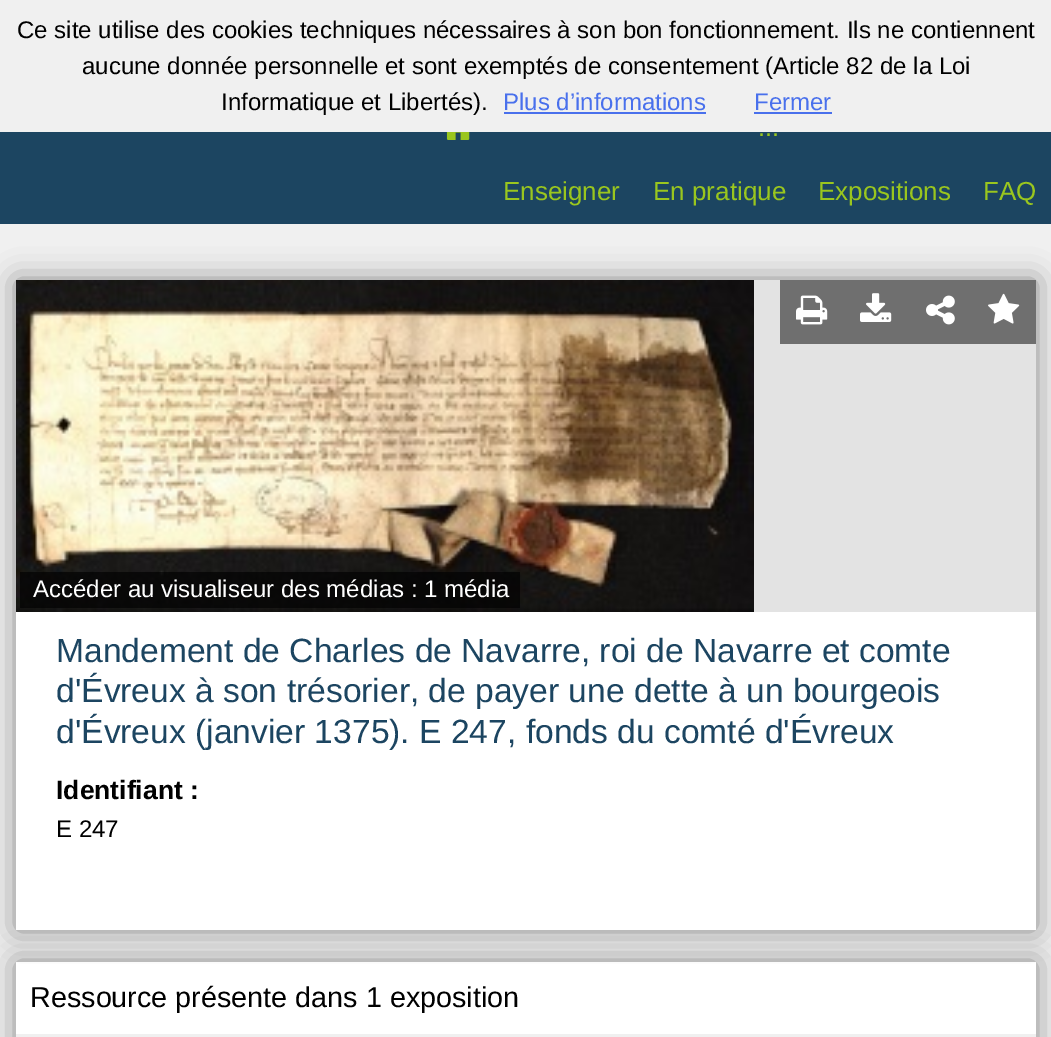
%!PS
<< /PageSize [1051 1037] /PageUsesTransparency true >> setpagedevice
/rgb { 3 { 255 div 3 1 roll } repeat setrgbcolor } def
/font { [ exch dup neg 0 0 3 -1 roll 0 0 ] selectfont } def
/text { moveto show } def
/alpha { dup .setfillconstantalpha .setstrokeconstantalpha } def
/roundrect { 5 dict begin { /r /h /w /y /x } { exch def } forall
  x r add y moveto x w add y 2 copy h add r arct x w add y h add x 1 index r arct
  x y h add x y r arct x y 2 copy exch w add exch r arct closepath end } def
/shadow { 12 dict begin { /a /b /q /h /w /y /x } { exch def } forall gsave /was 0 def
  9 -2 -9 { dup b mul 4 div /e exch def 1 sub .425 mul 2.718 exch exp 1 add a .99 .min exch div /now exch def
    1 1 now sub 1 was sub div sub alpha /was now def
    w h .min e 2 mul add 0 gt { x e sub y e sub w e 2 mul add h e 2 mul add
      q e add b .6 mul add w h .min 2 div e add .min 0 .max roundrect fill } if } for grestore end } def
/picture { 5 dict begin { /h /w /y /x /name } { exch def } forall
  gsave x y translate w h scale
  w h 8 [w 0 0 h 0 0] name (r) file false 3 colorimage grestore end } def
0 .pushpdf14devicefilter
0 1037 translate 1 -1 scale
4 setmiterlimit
240 240 240 rgb
0 0 1051 1037 rectfill
73 112 236 rgb
504 112 202 2 rectfill
754 112 78 2 rectfill
28 69 97 rgb
0 132 1051 92 rectfill
(img_01.rgb) 446 132 24 8 picture
gsave
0 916 moveto 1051 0 rlineto 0 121 rlineto -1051 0 rlineto closepath 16 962 moveto 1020 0 rlineto 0 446 rlineto -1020 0 rlineto closepath eoclip newpath
136 136 136 rgb
16 962 1020 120 0 15 1 shadow
grestore
255 255 255 rgb
16 962 1020 72 rectfill
136 136 136 rgb
16 280 1020 650 0 15 1 shadow
255 255 255 rgb
16 612 1020 318 rectfill
227 227 227 rgb
754 280 282 332 rectfill
111 111 111 rgb
780 280 128 64 rectfill
(img_02.rgb) 796 295 32 30 picture
908 280 128 64 rectfill
(img_03.rgb) 988 293 32 31 picture
(img_04.rgb) 860 293 32 29 picture
(img_05.rgb) 926 295 29 30 picture
(img_06.rgb) 16 280 738 332 picture
0.65 alpha
0 0 0 rgb
20 572 500 36 rectfill
/LiberationSans-Regular 24 font
1 alpha
(Ce site utilise des cookies techniques nécessaires à son bon fonctionnement. Ils ne contiennent) 17 38 text
(aucune donnée personnelle et sont exemptés de consentement \(Article 82 de la Loi) 82 74 text
(Informatique et Libertés\).) 221 110 text
73 112 236 rgb
(Plus d’informations) 503 110 text
(Fermer) 754 110 text
/LiberationSans-Regular 26 font
154 198 30 rgb
(...) 758 136 text
(Enseigner) 503 200 text
(En pratique) 653 200 text
(Expositions) 818 200 text
(FAQ) 983 200 text
/LiberationSans-Regular 24 font
255 255 255 rgb
(Accéder au visualiseur des médias : 1 média) 33 597 text
/LiberationSans-Regular 33.6 font
28 69 97 rgb
(Mandement de Charles de Navarre, roi de Navarre et comte) 56 662 text
(d'Évreux à son trésorier, de payer une dette à un bourgeois) 56 702 text
(d'Évreux \(janvier 1375\). E 247, fonds du comté d'Évreux) 56 743 text
/LiberationSans-Bold 26.5 font
0 0 0 rgb
(Identifiant :) 56 799 text
/LiberationSans-Regular 24 font
(E 247) 56 837 text
/LiberationSans-Regular 28.75 font
(Ressource présente dans 1 exposition) 30 1007 text
.poppdf14devicefilter showpage
